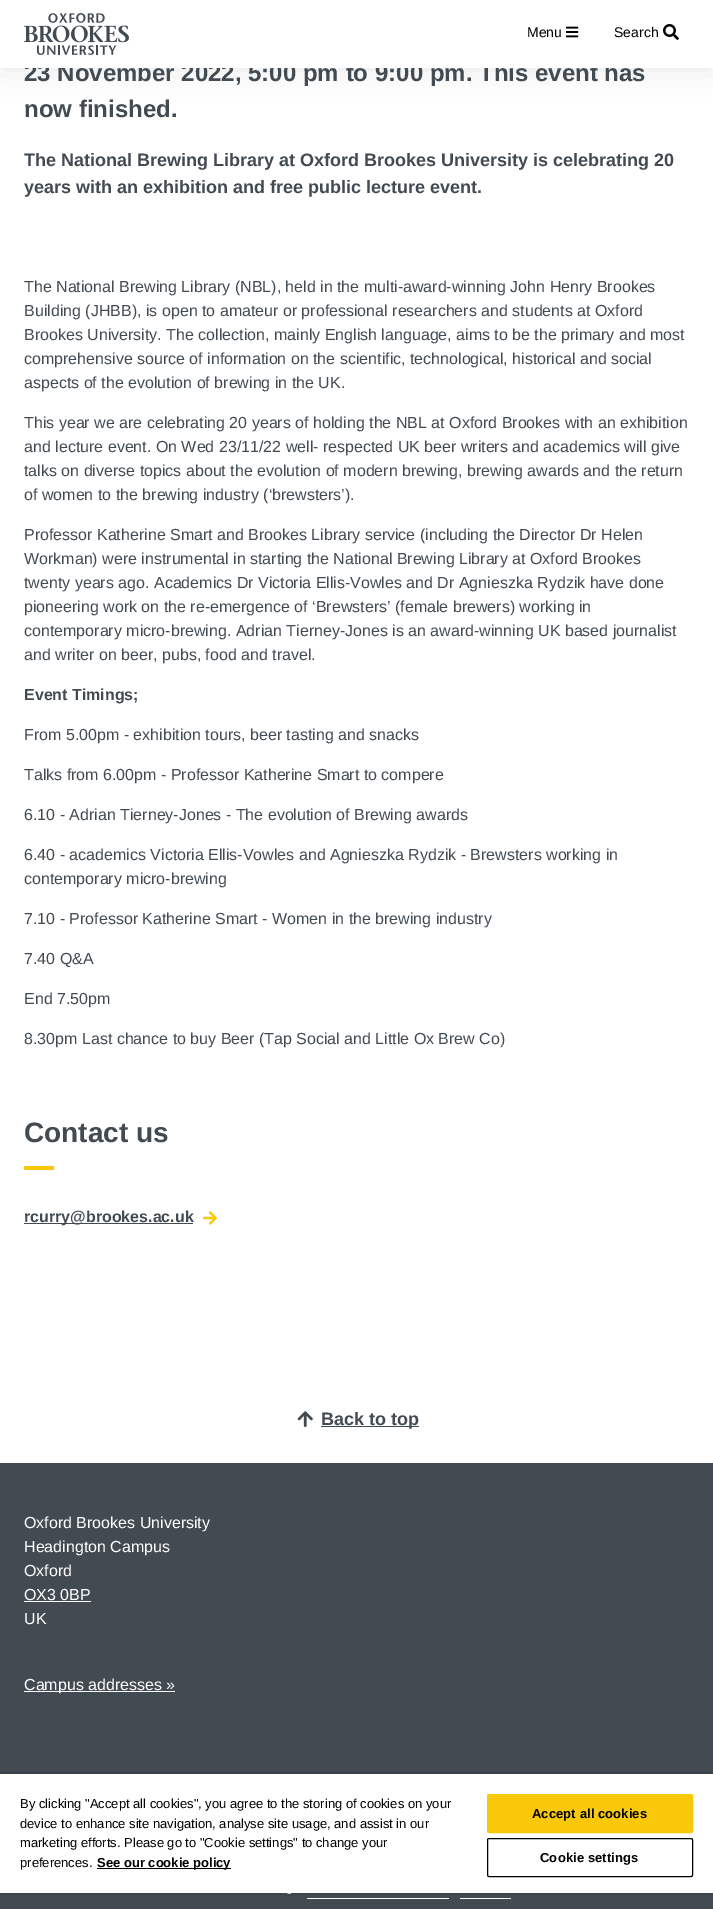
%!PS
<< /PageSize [713 1909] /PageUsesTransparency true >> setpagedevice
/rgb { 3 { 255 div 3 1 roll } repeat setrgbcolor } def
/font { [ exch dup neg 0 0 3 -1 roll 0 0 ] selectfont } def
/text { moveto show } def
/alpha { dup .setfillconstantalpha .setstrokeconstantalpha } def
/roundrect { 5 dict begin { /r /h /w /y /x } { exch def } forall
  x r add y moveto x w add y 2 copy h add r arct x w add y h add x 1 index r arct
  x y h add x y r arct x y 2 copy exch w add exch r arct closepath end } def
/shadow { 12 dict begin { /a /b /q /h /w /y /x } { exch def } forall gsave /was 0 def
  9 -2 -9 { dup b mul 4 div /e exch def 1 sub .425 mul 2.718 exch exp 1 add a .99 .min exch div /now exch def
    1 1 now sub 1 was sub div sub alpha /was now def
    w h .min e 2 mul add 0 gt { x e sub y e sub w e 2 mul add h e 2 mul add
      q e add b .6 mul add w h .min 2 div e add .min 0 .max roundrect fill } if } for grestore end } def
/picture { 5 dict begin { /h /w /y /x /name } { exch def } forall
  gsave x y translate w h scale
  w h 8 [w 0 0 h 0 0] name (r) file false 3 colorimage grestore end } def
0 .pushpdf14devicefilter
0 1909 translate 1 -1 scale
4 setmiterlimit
255 255 255 rgb
0 0 713 1909 rectfill
0 0 0 rgb
0 0 713 68 0 15 0.1 shadow
249 201 9 rgb
24 1166 30 4 rectfill
66 74 82 rgb
24 1223 169 1 rectfill
(img_04.rgb) 203 1211 14 14 picture
(img_05.rgb) 297 1411 16 16 picture
321 1426 98 1 rectfill
0 1463 713 446 rectfill
255 255 255 rgb
24 1601 67 1 rectfill
24 1691 151 1 rectfill
307 1898 142 1 rectfill
460 1898 51 1 rectfill
gsave
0 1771 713 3 rectclip
0 0 0 rgb
0 1774 713 135 0 2 0.35 shadow
grestore
gsave
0 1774 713 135 rectclip
0 0 0 rgb
0 1774 713 119 0 2 0.2 shadow
grestore
0 1774 713 119 rectfill
0 0 0 rgb
97 1868 134 1 rectfill
249 201 9 rgb
487.5 1794.5 205 38 1.5 roundrect gsave fill grestore
stroke
0 0 0 rgb
487.5 1838.5 205 38 1.5 roundrect stroke
/LiberationSans-Bold 24 font
66 74 82 rgb
(23 November 2022, 5:00 pm to 9:00 pm. This event has) 24 81 text
255 255 255 rgb
0 0 713 68 rectfill
(img_03.rgb) 663 24 16 16 picture
/LiberationSans-Regular 14 font
0 0 0 rgb
(Search) 614 37 text
(img_02.rgb) 566 26 13 12 picture
(Menu) 527 37 text
(img_01.rgb) 24 13 105 42 picture
/LiberationSans-Bold 24 font
66 74 82 rgb
(now finished.) 24 117 text
/LiberationSans-Bold 18 font
(The National Brewing Library at Oxford Brookes University is celebrating 20) 24 166 text
(years with an exhibition and free public lecture event.) 24 193 text
/LiberationSans-Regular 16 font
(The National Brewing Library \(NBL\), held in the multi-award-winning John Henry Brookes) 24 292 text
(Building \(JHBB\), is open to amateur or professional researchers and students at Oxford) 24 316 text
(Brookes University. The collection, mainly English language, aims to be the primary and most) 24 340 text
(comprehensive source of information on the scientific, technological, historical and social) 24 364 text
(aspects of the evolution of brewing in the UK.) 24 388 text
(This year we are celebrating 20 years of holding the NBL at Oxford Brookes with an exhibition) 24 428 text
(and lecture event. On Wed 23/11/22 well- respected UK beer writers and academics will give) 24 452 text
(talks on diverse topics about the evolution of modern brewing, brewing awards and the return) 24 476 text
(of women to the brewing industry \(‘brewsters’\).) 24 500 text
(Professor Katherine Smart and Brookes Library service \(including the Director Dr Helen) 24 540 text
(Workman\) were instrumental in starting the National Brewing Library at Oxford Brookes) 24 564 text
(twenty years ago. Academics Dr Victoria Ellis-Vowles and Dr Agnieszka Rydzik have done) 24 588 text
(pioneering work on the re-emergence of ‘Brewsters’ \(female brewers\) working in) 24 612 text
(contemporary micro-brewing. Adrian Tierney-Jones is an award-winning UK based journalist) 24 636 text
(and writer on beer, pubs, food and travel.) 24 660 text
/LiberationSans-Bold 16 font
(Event Timings;) 24 700 text
/LiberationSans-Regular 16 font
(From 5.00pm - exhibition tours, beer tasting and snacks) 24 740 text
(Talks from 6.00pm - Professor Katherine Smart to compere) 24 780 text
(6.10 - Adrian Tierney-Jones - The evolution of Brewing awards) 24 820 text
(6.40 - academics Victoria Ellis-Vowles and Agnieszka Rydzik - Brewsters working in) 24 860 text
(contemporary micro-brewing) 24 884 text
(7.10 - Professor Katherine Smart - Women in the brewing industry) 24 924 text
(7.40 Q&A) 24 964 text
(End 7.50pm) 24 1004 text
(8.30pm Last chance to buy Beer \(Tap Social and Little Ox Brew Co\)) 24 1044 text
/LiberationSans-Bold 28 font
(Contact us) 24 1142 text
/LiberationSans-Bold 16 font
(rcurry@brookes.ac.uk) 24 1222 text
/LiberationSans-Bold 18 font
(Back to top) 321 1425 text
/LiberationSans-Regular 16 font
255 255 255 rgb
(Oxford Brookes University) 24 1528 text
(Headington Campus) 24 1552 text
(Oxford) 24 1576 text
(OX3 0BP) 24 1600 text
(UK) 24 1624 text
(Campus addresses ») 24 1690 text
/LiberationSans-Regular 14 font
(-) 287 1897 text
/LiberationSans-Regular 13 font
0 0 0 rgb
(By clicking "Accept all cookies", you agree to the storing of cookies on your) 20 1808 text
(device to enhance site navigation, analyse site usage, and assist in our) 20 1828 text
(marketing efforts. Please go to "Cookie settings" to change your) 20 1847 text
(preferences.) 20 1867 text
/LiberationSans-Bold 13 font
(See our cookie policy) 97 1867 text
532 1818 moveto 0.1 0 (Accept all cookies) ashow
540 1862 moveto 0.1 0 (Cookie settings) ashow
.poppdf14devicefilter showpage
